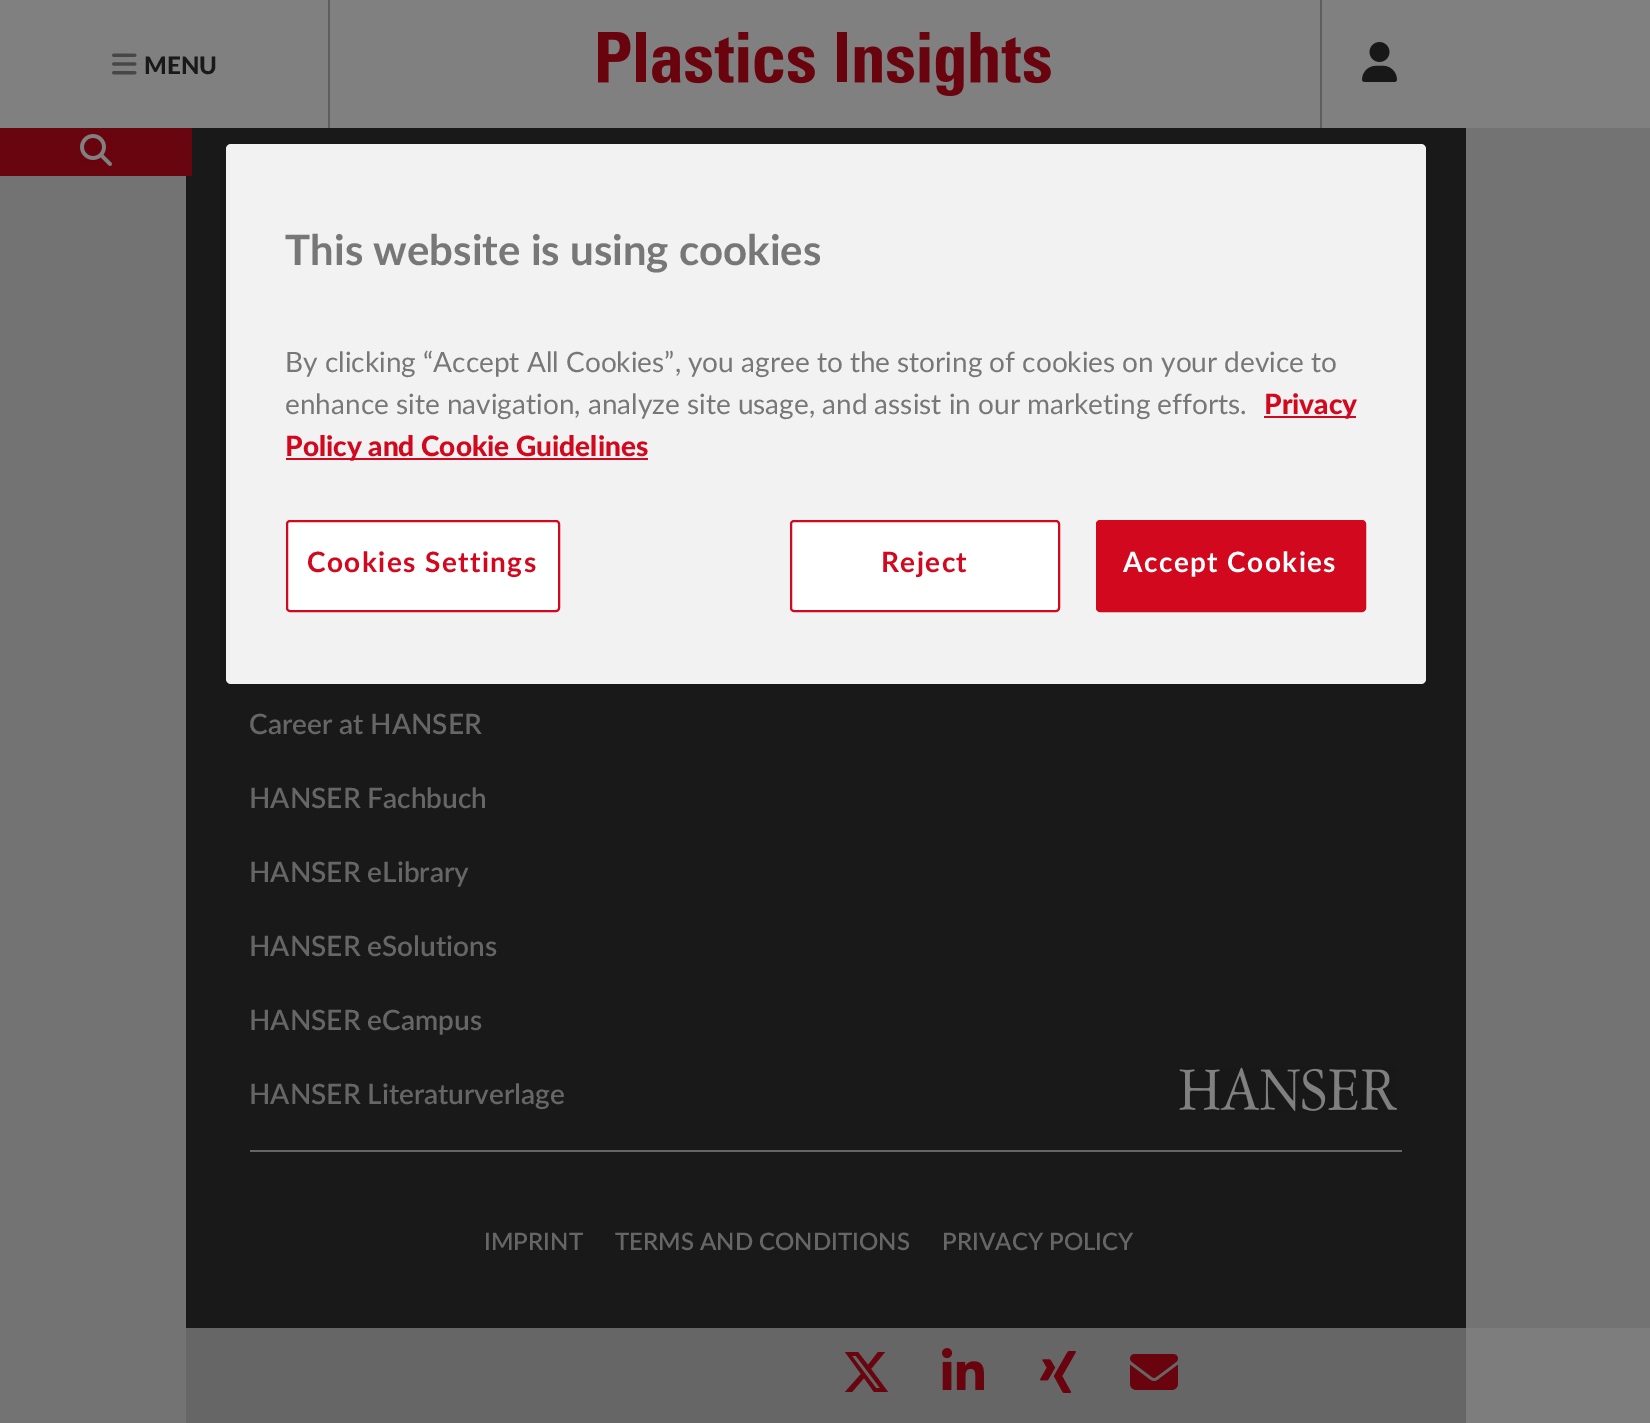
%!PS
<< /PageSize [1650 1423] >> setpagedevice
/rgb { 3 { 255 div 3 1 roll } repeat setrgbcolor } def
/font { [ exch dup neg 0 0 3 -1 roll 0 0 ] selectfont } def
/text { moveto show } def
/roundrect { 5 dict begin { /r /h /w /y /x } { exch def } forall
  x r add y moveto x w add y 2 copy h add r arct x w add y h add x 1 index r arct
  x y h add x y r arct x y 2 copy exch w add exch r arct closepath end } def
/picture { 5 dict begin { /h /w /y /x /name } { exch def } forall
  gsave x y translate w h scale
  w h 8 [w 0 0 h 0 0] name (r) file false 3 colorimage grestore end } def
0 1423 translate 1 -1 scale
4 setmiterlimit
116 115 115 rgb
0 0 1650 1423 rectfill
125 125 125 rgb
1466 1328 184 95 rectfill
128 128 128 rgb
0 0 1650 128 rectfill
94 94 94 rgb
328 0 2 128 rectfill
(img_01.rgb) 112 53 25 22 picture
(img_02.rgb) 598 32 453 64 picture
1320 0 2 128 rectfill
(img_03.rgb) 1362 42 35 40 picture
25 25 25 rgb
186 128 1280 1200 rectfill
105 5 15 rgb
0 128 192 48 rectfill
(img_04.rgb) 80 134 32 32 picture
102 102 102 rgb
186 1328 1280 95 rectfill
(img_05.rgb) 1179 1067 218 45 picture
250 1150 1152 2 rectfill
105 5 15 rgb
878 1352 moveto 7 0 rlineto -14 17 rlineto 17 23 rlineto -14 0 rlineto -10 -14 rlineto -12 14 rlineto -7 0 rlineto 16 -18 rlineto -16 -22 rlineto 13 0 rlineto 10 13 rlineto closepath 876 1388 moveto 4 0 rlineto -24 -32 rlineto -4 0 rlineto closepath fill
(img_06.rgb) 942 1348 42 42 picture
(img_07.rgb) 1040 1351 36 42 picture
(img_08.rgb) 1130 1354 48 36 picture
242 242 242 rgb
226 144 1200 540 5 roundrect fill
210 9 30 rgb
1264 416 92 2 rectfill
286 458 362 2 rectfill
255 255 255 rgb
287 521 272 90 3 roundrect gsave fill grestore
210 9 30 rgb
2 setlinewidth
stroke
255 255 255 rgb
791 521 268 90 3 roundrect gsave fill grestore
210 9 30 rgb
stroke
1097 521 268 90 3 roundrect gsave fill grestore
stroke
/Lato-Black 24 font
25 25 25 rgb
(MENU) 144 74 text
/Lato-SemiBold 28 font
102 102 102 rgb
(Career at HANSER) 249 734 text
(HANSER Fachbuch) 249 808 text
(HANSER eLibrary) 249 882 text
(HANSER eSolutions) 249 956 text
(HANSER eCampus) 249 1030 text
(HANSER Literaturverlage) 249 1104 text
/Lato-SemiBold 24 font
(IMPRINT) 484 1250 text
(TERMS AND CONDITIONS) 615 1250 text
(PRIVACY POLICY) 942 1250 text
/Lato-Bold 42 font
119 119 119 rgb
(This website is using cookies) 285 265 text
/Lato-Regular 28 font
(By clicking “Accept All Cookies”, you agree to the storing of cookies on your device to) 285 372 text
(enhance site navigation, analyze site usage, and assist in our marketing efforts.) 285 414 text
/Lato-Black 28 font
210 9 30 rgb
(Privacy) 1264 414 text
(Policy and Cookie Guidelines) 285 456 text
/Lato-Bold 28 font
307 572 moveto 1.4 0 (Cookies Settings) ashow
881 572 moveto 1.4 0 (Reject) ashow
255 255 255 rgb
1123 572 moveto 1.4 0 (Accept Cookies) ashow
showpage
